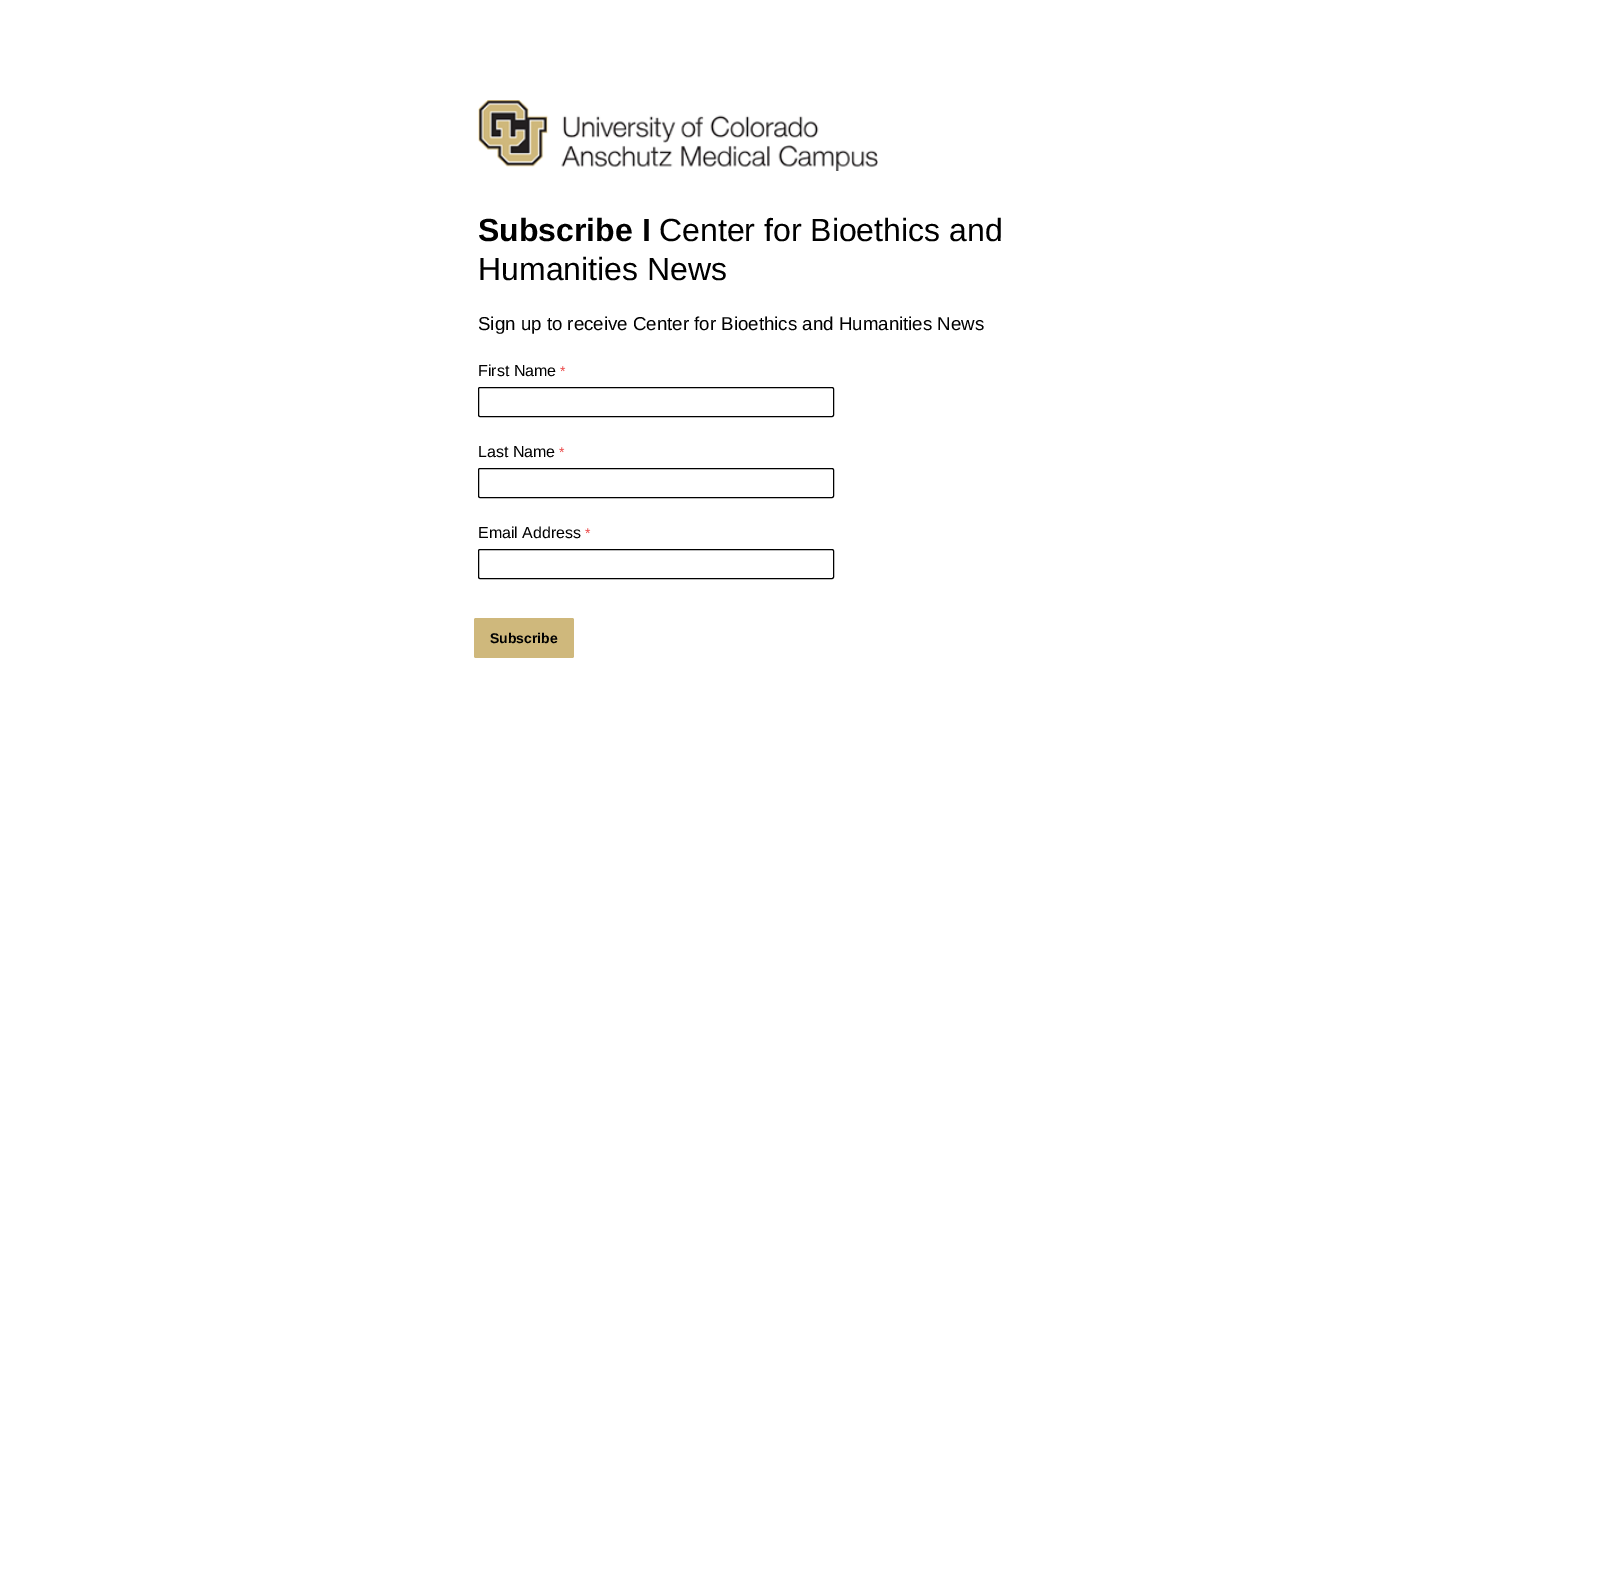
%!PS
<< /PageSize [1614 1593] >> setpagedevice
/rgb { 3 { 255 div 3 1 roll } repeat setrgbcolor } def
/font { [ exch dup neg 0 0 3 -1 roll 0 0 ] selectfont } def
/text { moveto show } def
/roundrect { 5 dict begin { /r /h /w /y /x } { exch def } forall
  x r add y moveto x w add y 2 copy h add r arct x w add y h add x 1 index r arct
  x y h add x y r arct x y 2 copy exch w add exch r arct closepath end } def
/picture { 5 dict begin { /h /w /y /x /name } { exch def } forall
  gsave x y translate w h scale
  w h 8 [w 0 0 h 0 0] name (r) file false 3 colorimage grestore end } def
0 1593 translate 1 -1 scale
4 setmiterlimit
255 255 255 rgb
0 0 1614 1593 rectfill
(img_01.rgb) 478 100 400 71 picture
0 0 0 rgb
478.5 387.5 355 29 1.5 roundrect stroke
478.5 468.5 355 29 1.5 roundrect stroke
478.5 549.5 355 29 1.5 roundrect stroke
207 184 124 rgb
474 618 100 40 2 roundrect fill
/LiberationSans-Bold 32 font
0 0 0 rgb
(Subscribe I) 478 241 text
/LiberationSans-Regular 32 font
(Center for Bioethics and) 659 241 text
(Humanities News) 478 280 text
/LiberationSans-Regular 18.7 font
(Sign up to receive Center for Bioethics and Humanities News) 478 330 text
/LiberationSans-Regular 16 font
(First Name) 478 376 text
/LiberationSans-Regular 14 font
236 78 78 rgb
(*) 560 376 text
/LiberationSans-Regular 16 font
0 0 0 rgb
(Last Name) 478 457 text
/LiberationSans-Regular 14 font
236 78 78 rgb
(*) 559 457 text
/LiberationSans-Regular 16 font
0 0 0 rgb
(Email Address) 478 538 text
/LiberationSans-Regular 14 font
236 78 78 rgb
(*) 585 538 text
/LiberationSans-Bold 14 font
0 0 0 rgb
(Subscribe) 490 643 text
showpage
